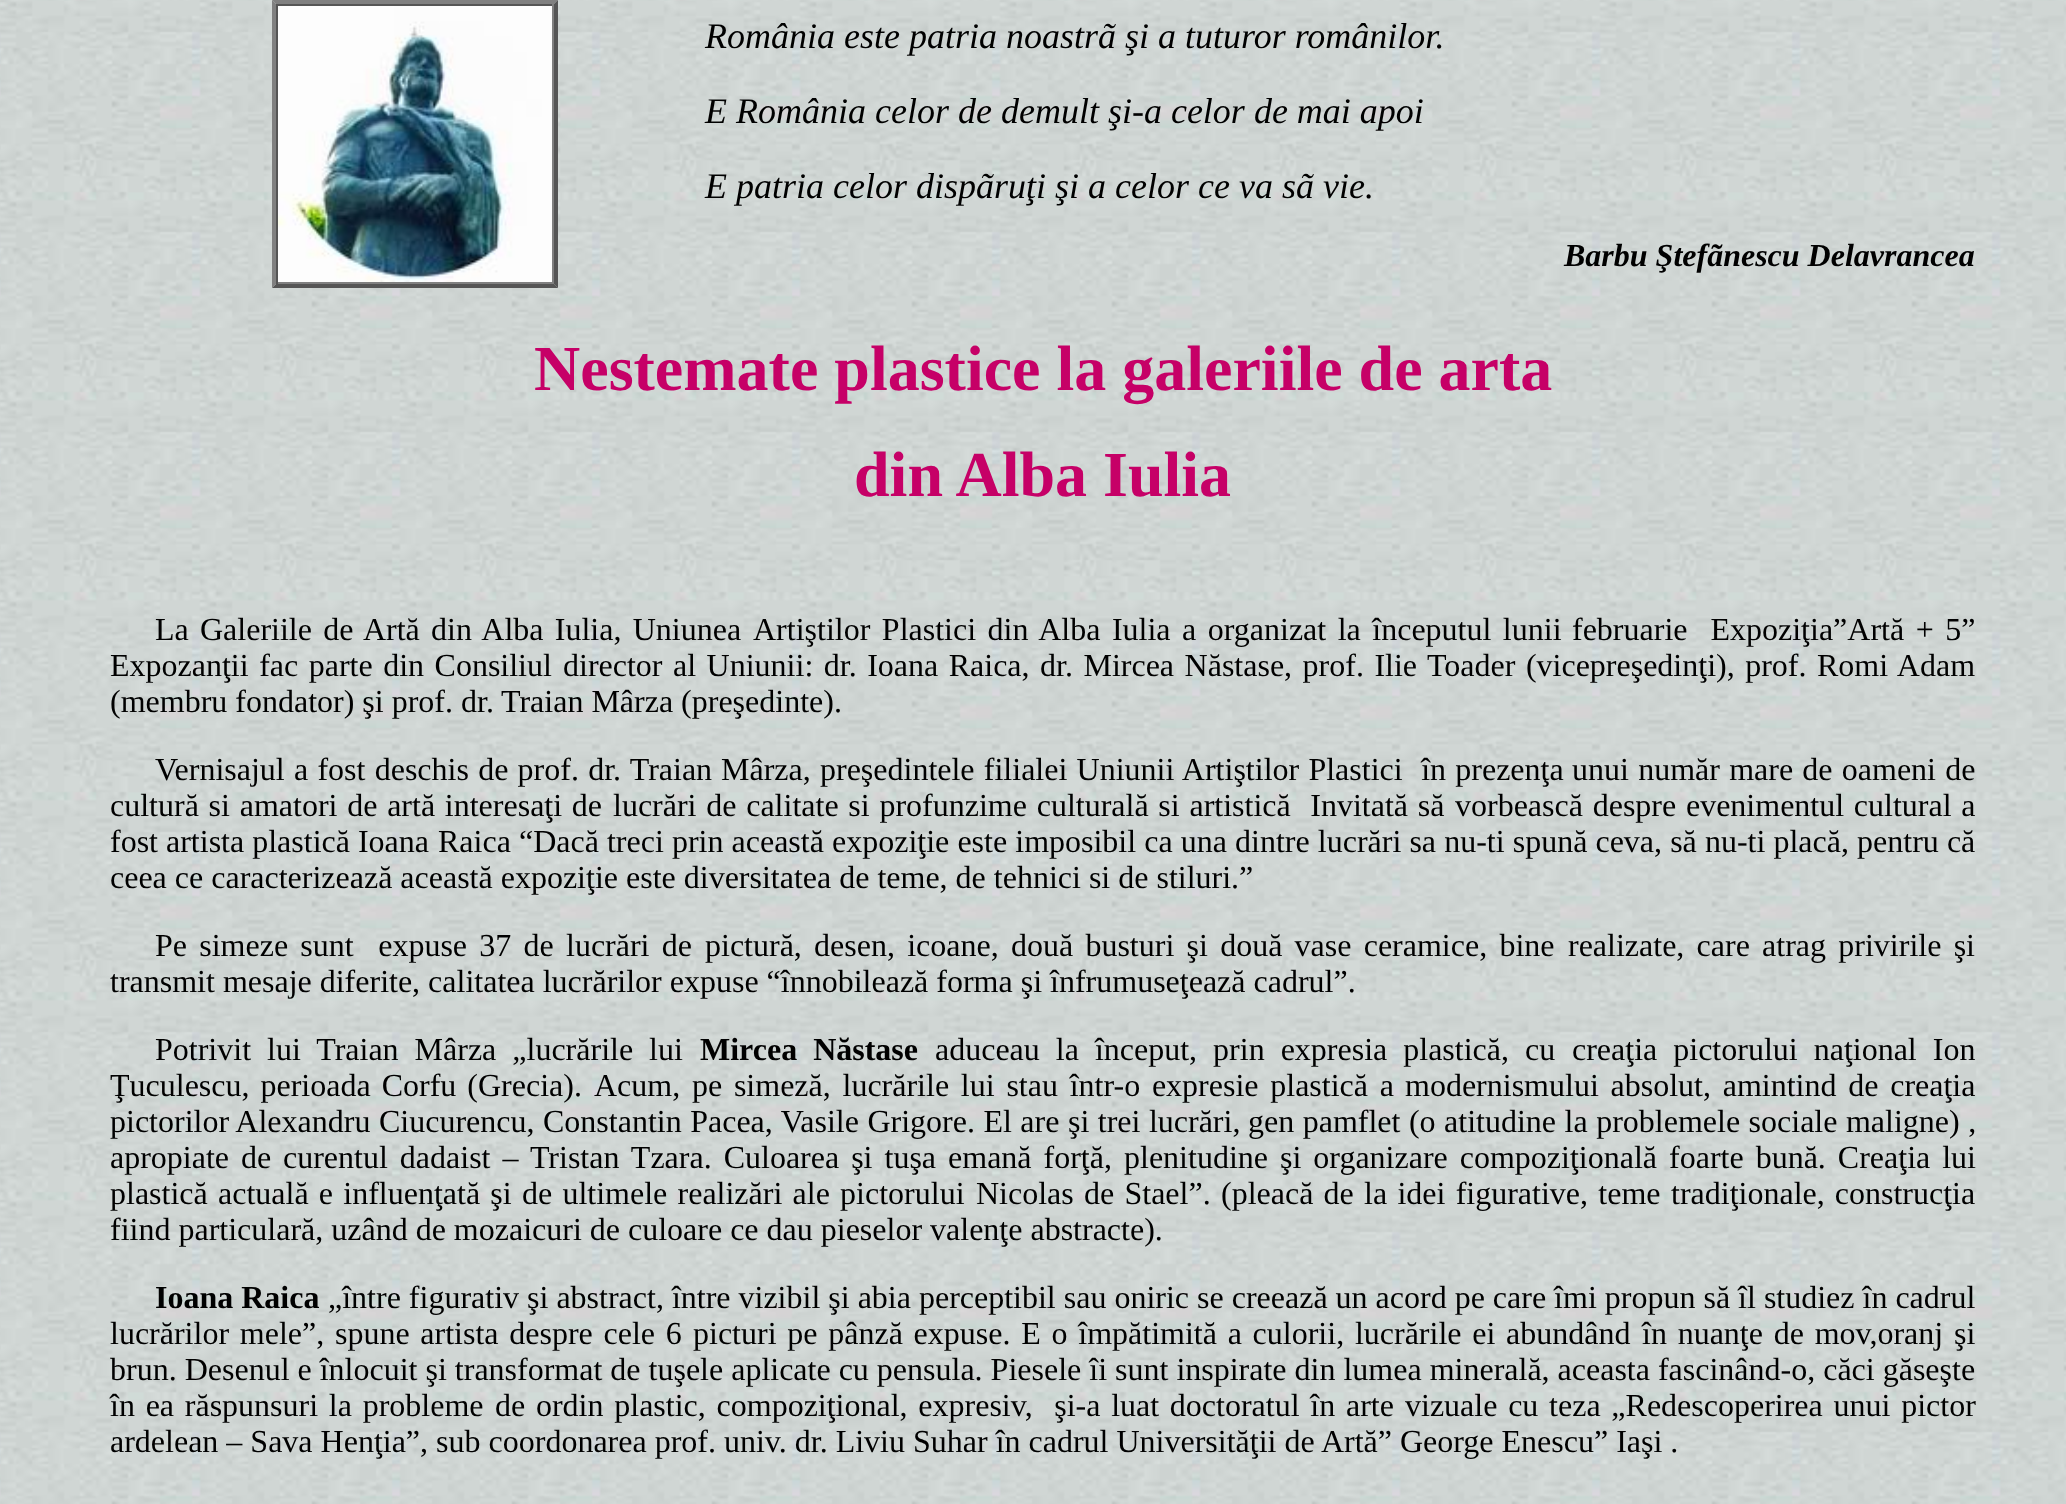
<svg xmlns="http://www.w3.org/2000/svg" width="2066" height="1504">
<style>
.a{font:italic 36px Liberation Serif;fill:#000}
.b{font:italic bold 32px Liberation Serif;fill:#000}
.c{font:bold 64px Liberation Serif;fill:#c60067}
.d{font:32px Liberation Serif;fill:#000}
.e{font:bold 32px Liberation Serif;fill:#000}
</style>
<rect width="100%" height="100%" fill="#fff"/>
<image href="1.png" x="0" y="0" width="2066" height="1504"/>
<path fill="#808080" d="M272 0h286l-4 4h-278z"/>
<path fill="#555" d="M558 0v288l-4-4v-280z"/>
<path fill="#555" d="M558 288h-286l4-4h278z"/>
<path fill="#808080" d="M272 288v-288l4 4v280z"/>
<path fill="#555" d="M276 4h278v2H276z"/>
<path fill="#808080" d="M552 4h2v280H552z"/>
<path fill="#808080" d="M276 282h278v2H276z"/>
<path fill="#555" d="M276 4h2v280H276z"/>
<image href="2.png" x="278" y="6" width="274" height="276"/>
<text class="a" x="705" y="48">România este patria noastrã şi a tuturor românilor.</text>
<text class="a" x="705" y="123">E România celor de demult şi-a celor de mai apoi</text>
<text class="a" x="705" y="198">E patria celor dispãruţi şi a celor ce va sã vie.</text>
<text class="b" x="1564" y="266">Barbu Ştefãnescu Delavrancea</text>
<text class="c" x="534" y="390">Nestemate plastice la galeriile de arta</text>
<text class="c" x="854" y="496">din Alba Iulia</text>
<text class="d" x="155" y="640" word-spacing="3.25">La Galeriile de Artă din Alba Iulia, Uniunea</text>
<text class="d" x="753" y="640" word-spacing="3.5">Artiştilor Plastici din Alba Iulia a organizat la începutul lunii</text>
<text class="d" xml:space="preserve" x="1572" y="640" word-spacing="3.5">februarie  Expoziţia”Artă + 5”</text>
<text class="d" x="110" y="676" word-spacing="2.5">Expozanţii fac parte din Consiliul</text>
<text class="d" x="563" y="676" word-spacing="2.5">director al Uniunii: dr. Ioana Raica, dr. Mircea Năstase, prof. Ilie</text>
<text class="d" x="1427" y="676" word-spacing="2.5">Toader (vicepreşedinţi), prof. Romi Adam</text>
<text class="d" x="110" y="712">(membru fondator) şi prof. dr.</text>
<text class="d" x="501" y="712">Traian Mârza (preşedinte).</text>
<text class="d" x="155" y="780" word-spacing="1.25">Vernisajul a fost deschis de prof. dr. Traian</text>
<text class="d" xml:space="preserve" x="721" y="780" word-spacing="1.25">Mârza, preşedintele filialei Uniunii Artiştilor Plastici  în prezenţa</text>
<text class="d" x="1572" y="780" word-spacing="1.25">unui număr mare de oameni de</text>
<text class="d" x="110" y="816" word-spacing="1.75">cultură si amatori de artă interesaţi de</text>
<text class="d" xml:space="preserve" x="613" y="816" word-spacing="1.75">lucrări de calitate si profunzime culturală si artistică  Invitată să</text>
<text class="d" x="1455" y="816" word-spacing="1.75">vorbească despre evenimentul cultural a</text>
<text class="d" x="110" y="852">fost artista plastică Ioana</text>
<text class="d" x="438" y="852" word-spacing="0.1">Raica “Dacă treci prin această expoziţie este imposibil ca una dintre lucrări sa nu-ti spună ceva, să nu-ti placă, pentru că</text>
<text class="d" x="110" y="888">ceea ce caracterizează această expoziţie este diversitatea de teme, de tehnici si de stiluri.”</text>
<text class="d" xml:space="preserve" x="155" y="956" word-spacing="4.25">Pe simeze sunt  expuse 37 de lucrări de</text>
<text class="d" x="705" y="956" word-spacing="4.25">pictură, desen, icoane, două busturi şi două vase ceramice, bine</text>
<text class="d" x="1568" y="956" word-spacing="4.25">realizate, care atrag privirile şi</text>
<text class="d" x="110" y="992">transmit mesaje diferite, calitatea lucrărilor expuse “înnobilează forma şi înfrumuseţează cadrul”.</text>
<text class="d" x="155" y="1060" word-spacing="8">Potrivit lui Traian Mârza „lucrările lui</text>
<text class="e" x="700" y="1060" word-spacing="8">Mircea Năstase</text>
<text class="d" x="935" y="1060" word-spacing="8">aduceau la început, prin expresia plastică, cu</text>
<text class="d" x="1572" y="1060" word-spacing="8">creaţia pictorului naţional Ion</text>
<text class="d" x="110" y="1096" word-spacing="3">Ţuculescu, perioada Corfu (Grecia).</text>
<text class="d" x="594" y="1096" word-spacing="3.75">Acum, pe simeză, lucrările lui stau într-o expresie plastică a</text>
<text class="d" x="1405" y="1096" word-spacing="3.75">modernismului absolut, amintind de creaţia</text>
<text class="d" x="110" y="1132">pictorilor Alexandru</text>
<text class="d" x="379" y="1132" word-spacing="0.5">Ciucurencu, Constantin Pacea, Vasile Grigore. El are şi trei lucrări,</text>
<text class="d" x="1248" y="1132" word-spacing="0.5">gen pamflet (o atitudine la problemele sociale maligne) ,</text>
<text class="d" x="110" y="1168" word-spacing="4">apropiate de</text>
<text class="d" x="283" y="1168" word-spacing="4">curentul dadaist – Tristan Tzara. Culoarea şi tuşa emană forţă,</text>
<text class="d" x="1124" y="1168" word-spacing="4">plenitudine şi organizare compoziţională foarte bună. Creaţia lui</text>
<text class="d" x="110" y="1204" word-spacing="2.25">plastică actuală e influenţată şi de ultimele realizări ale pictorului</text>
<text class="d" x="976" y="1204" word-spacing="2.25">Nicolas de Stael”.</text>
<text class="d" x="1221" y="1204" word-spacing="2.25">(pleacă de la idei figurative, teme</text>
<text class="d" x="1671" y="1204" word-spacing="2">tradiţionale, construcţia</text>
<text class="d" x="110" y="1240">fiind particulară, uzând de mozaicuri de culoare ce dau pieselor valenţe abstracte).</text>
<text class="e" x="155" y="1308">Ioana Raica</text>
<text class="d" x="328" y="1308">„între figurativ şi abstract, între vizibil şi abia perceptibil sau oniric se creează un acord pe care îmi propun să îl studiez în cadrul</text>
<text class="d" x="110" y="1344" word-spacing="2.75">lucrărilor mele”, spune artista despre cele 6</text>
<text class="d" x="693" y="1344" word-spacing="2.75">picturi pe pânză expuse. E o împătimită a culorii, lucrările ei abundând</text>
<text class="d" x="1642" y="1344" word-spacing="2.75">în nuanţe de mov,oranj şi</text>
<text class="d" x="110" y="1380">brun. Desenul e înlocuit şi transformat de tuşele aplicate cu pensula. Piesele îi sunt inspirate din lumea minerală, aceasta fascinând-o, căci găseşte</text>
<text class="d" x="110" y="1416" word-spacing="2.75">în ea răspunsuri la probleme</text>
<text class="d" xml:space="preserve" x="495" y="1416" word-spacing="2.75">de ordin plastic, compoziţional, expresiv,  şi-a luat doctoratul în arte</text>
<text class="d" x="1405" y="1416" word-spacing="2.75">vizuale cu teza „Redescoperirea unui pictor</text>
<text class="d" x="110" y="1452">ardelean – Sava Henţia”, sub coordonarea prof. univ. dr. Liviu Suhar în cadrul Universităţii de Artă” George Enescu” Iaşi .</text>
</svg>
